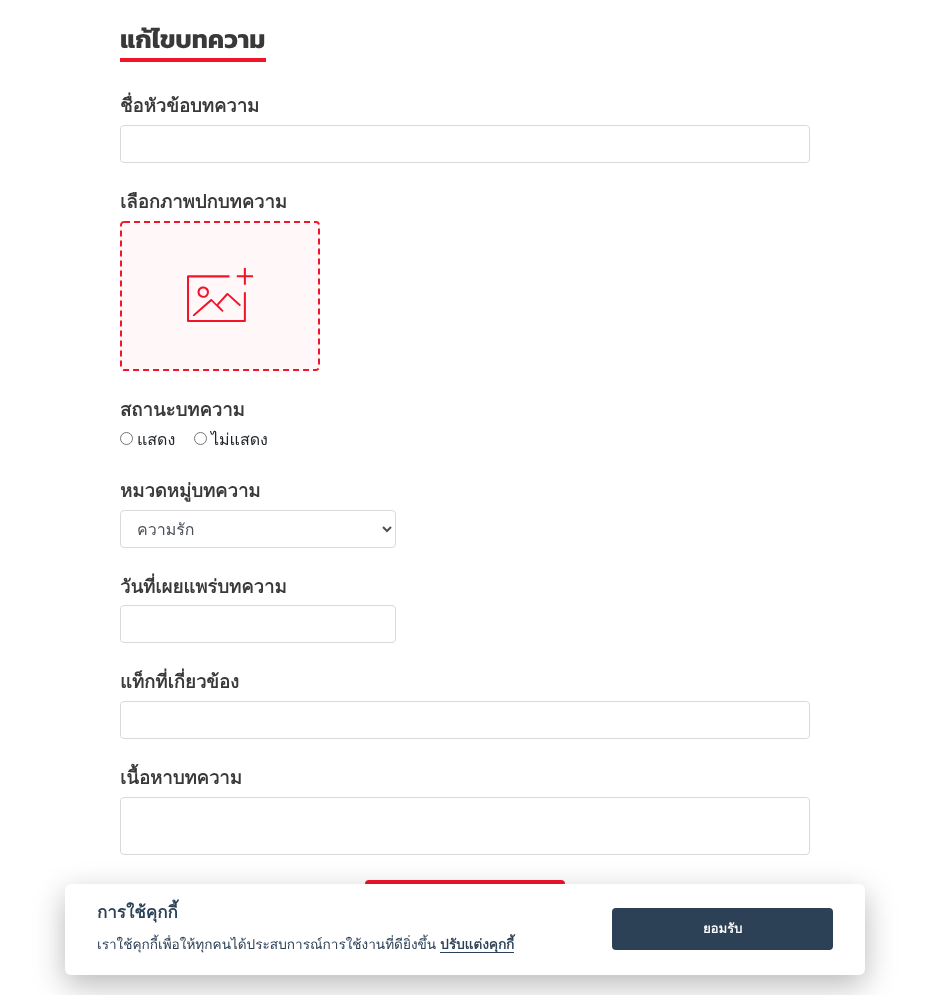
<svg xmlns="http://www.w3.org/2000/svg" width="930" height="995">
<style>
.a{font:bold 25.5px Kanit;fill:#393939}
.b{font:bold 18.5px Loma;fill:#393939}
.c{font:16px Loma;fill:#212529}
.d{font:16px Loma;fill:#495057}
.e{font:bold 17px Loma;fill:#2d4156}
.f{font:13.6px Loma;fill:#2d4156}
.g{font:bold 13.6px Loma;fill:#2d4156}
.h{font:bold 13px Loma;fill:#fff}
</style>
<rect width="100%" height="100%" fill="#fff"/>
<path fill="#f21529" d="M120 58h146v4H120z"/>
<rect fill="none" stroke="#d9d9d9" x="120.5" y="125.5" width="689" height="37" rx="3.5"/>
<rect fill="#fff7f8" x="120" y="221" width="200" height="150" rx="4"/>
<path fill="none" stroke="#f21529" stroke-width="2" stroke-dasharray="6 4" d="M124 222h192c1.5 0 3 1.5 3 3v142c0 1.5-1.5 3-3 3h-192c-1.5 0-3-1.5-3-3v-142c0-1.5 1.5-3 3-3z"/>
<image href="1.png" x="187" y="268" width="66" height="54"/>
<circle fill="none" stroke="#767676" cx="126.5" cy="438.5" r="6"/>
<circle fill="none" stroke="#767676" cx="200.5" cy="438.5" r="6"/>
<rect fill="none" stroke="#d9d9d9" x="120.5" y="510.5" width="275" height="37" rx="3.5"/>
<path fill="none" stroke="#495057" stroke-width="2" d="M383 527l4 4l4-4"/>
<rect fill="none" stroke="#d9d9d9" x="120.5" y="605.5" width="275" height="37" rx="3.5"/>
<rect fill="none" stroke="#d9d9d9" x="120.5" y="701.5" width="689" height="37" rx="3.5"/>
<rect fill="none" stroke="#d9d9d9" x="120.5" y="797.5" width="689" height="57" rx="3.5"/>
<rect fill="#f21529" x="365" y="880" width="200" height="55" rx="4"/>
<rect fill="#02020347" filter="blur(15px)" x="65" y="894" width="800" height="91" rx="6"/>
<rect fill="#fff" x="65" y="884" width="800" height="91" rx="6"/>
<path fill="#2d4156" d="M440 952h74v1H440z"/>
<rect fill="#2d4156" x="612" y="908" width="221" height="42" rx="4"/>
<text class="a" x="120" y="48">แก้ไขบทความ</text>
<text class="b" x="120" y="112">ชื่อหัวข้อบทความ</text>
<text class="b" x="120" y="208">เลือกภาพปกบทความ</text>
<text class="b" x="120" y="416">สถานะบทความ</text>
<text class="c" x="137" y="445">แสดง</text>
<text class="c" x="211" y="445">ไม่แสดง</text>
<text class="b" x="120" y="497">หมวดหมู่บทความ</text>
<text class="d" x="137" y="535">ความรัก</text>
<text class="b" x="120" y="593">วันที่เผยแพร่บทความ</text>
<text class="b" x="120" y="688">แท็กที่เกี่ยวข้อง</text>
<text class="b" x="120" y="784">เนื้อหาบทความ</text>
<text class="e" x="97" y="918">การใช้คุกกี้</text>
<text class="f" x="97" y="949">เราใช้คุกกี้เพื่อให้ทุกคนได้ประสบการณ์การใช้งานที่ดียิ่งขึ้น</text>
<text class="g" x="440" y="949">ปรับแต่งคุกกี้</text>
<text class="h" x="703" y="933">ยอมรับ</text>
</svg>
